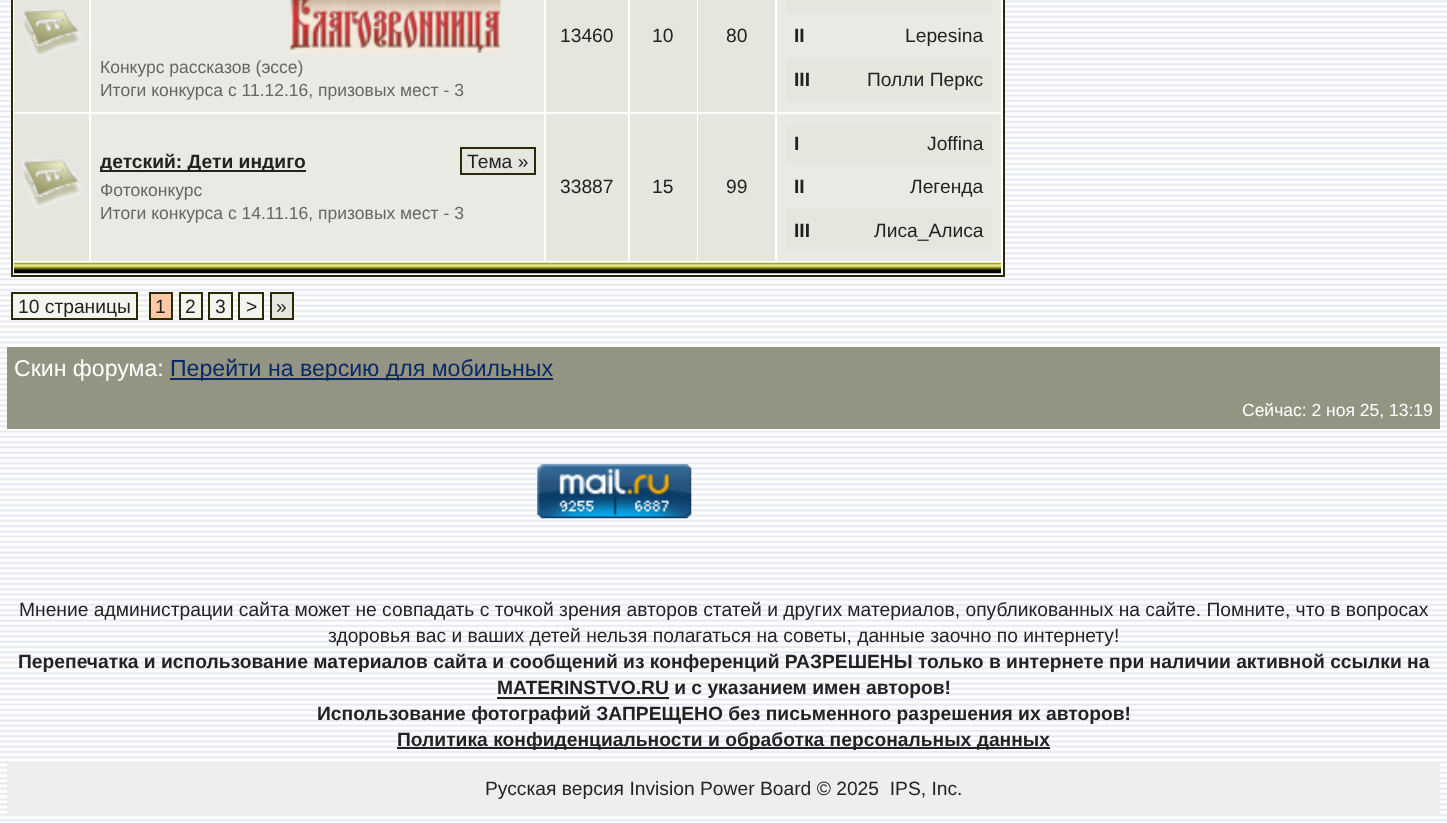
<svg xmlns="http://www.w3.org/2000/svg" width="1447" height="823">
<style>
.a{font:17.5px Liberation Sans;fill:#666}
.b{font:19.25px Liberation Sans;fill:#222}
.c{font:bold 19.25px Liberation Sans;fill:#222}
.d{font:23.1px Liberation Sans;fill:#fff}
.e{font:23.1px Liberation Sans;fill:#072a66}
.f{font:17.5px Liberation Sans;fill:#fff}
</style>
<rect width="100%" height="100%" fill="#fff"/>
<image href="1.png" x="0" y="0" width="1447" height="822"/>
<path fill="#fff" stroke="#2a2a07" stroke-width="2" d="M12 -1h992v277H12z"/>
<path fill="#e6e6df" d="M14 0h75v112H14z"/>
<image href="2.png" x="22" y="9" width="59" height="49"/>
<path fill="#eaeae4" d="M91 0h453v112H91z"/>
<image href="3.png" x="290" y="0" width="211" height="53"/>
<path fill="#e6e6df" d="M546 0h82v112H546z"/>
<path fill="#e6e6df" d="M630 0h67v112H630z"/>
<path fill="#e6e6df" d="M698 0h77v112H698z"/>
<path fill="#eaeae4" d="M777 0h224v112H777z"/>
<path fill="#e6e6df" d="M786 0h206v14H786z"/>
<path fill="#e6e6df" d="M786 58h206v44H786z"/>
<path fill="#e6e6df" d="M14 114h75v147H14z"/>
<image href="4.png" x="22" y="159" width="59" height="50"/>
<path fill="#eaeae4" d="M91 114h453v147H91z"/>
<path fill="#222" d="M100 170h206v2H100z"/>
<path fill="#e6e6df" stroke="#2a2a07" stroke-width="2" d="M461 148h74v26H461z"/>
<path fill="#e6e6df" d="M546 114h82v147H546z"/>
<path fill="#e6e6df" d="M630 114h67v147H630z"/>
<path fill="#e6e6df" d="M698 114h77v147H698z"/>
<path fill="#eaeae4" d="M777 114h224v147H777z"/>
<path fill="#e6e6df" d="M786 123h206v42H786z"/>
<path fill="#e6e6df" d="M786 208h206v44H786z"/>
<image href="5.png" x="14" y="262" width="987" height="12"/>
<path fill="#f5f5f0" stroke="#2a2a07" stroke-width="2" d="M12 293h125v26H12z"/>
<path fill="#ffc9a5" stroke="#2a2a07" stroke-width="2" d="M150 293h22v26H150z"/>
<path fill="#f5f5f0" stroke="#2a2a07" stroke-width="2" d="M180 293h22v26H180z"/>
<path fill="#f5f5f0" stroke="#2a2a07" stroke-width="2" d="M209 293h23v26H209z"/>
<path fill="#f5f5f0" stroke="#2a2a07" stroke-width="2" d="M239 293h24v26H239z"/>
<path fill="#e6e6df" stroke="#2a2a07" stroke-width="2" d="M271 293h22v26H271z"/>
<path fill="#949483" d="M7 347h1433v82H7z"/>
<path fill="#072a66" d="M170 378h383v2H170z"/>
<image href="6.png" x="537" y="464" width="155" height="55"/>
<path fill="#222" d="M497 697h172v2H497z"/>
<path fill="#222" d="M397 747h653v2H397z"/>
<path fill="#eee" d="M7 761h1433v55H7z"/>
<text class="a" x="100" y="73">Конкурс рассказов (эссе)</text>
<text class="a" x="100" y="96">Итоги конкурса с 11.12.16, призовых мест - 3</text>
<text class="b" x="560" y="42">13460</text>
<text class="b" x="652" y="42">10</text>
<text class="b" x="726" y="42">80</text>
<text class="c" x="794" y="42">II</text>
<text class="b" x="905" y="42">Lepesina</text>
<text class="c" x="794" y="86">III</text>
<text class="b" x="867" y="86">Полли Перкс</text>
<text class="c" x="100" y="168">детский: Дети индиго</text>
<text class="b" x="467" y="168">Тема »</text>
<text class="a" x="100" y="196">Фотоконкурс</text>
<text class="a" x="100" y="219">Итоги конкурса с 14.11.16, призовых мест - 3</text>
<text class="b" x="560" y="193">33887</text>
<text class="b" x="652" y="193">15</text>
<text class="b" x="726" y="193">99</text>
<text class="c" x="794" y="150">I</text>
<text class="b" x="927" y="150">Joffina</text>
<text class="c" x="794" y="193">II</text>
<text class="b" x="910" y="193">Легенда</text>
<text class="c" x="794" y="237">III</text>
<text class="b" x="874" y="237">Лиса_Алиса</text>
<text class="b" x="18" y="313">10 страницы</text>
<text class="b" x="155" y="313">1</text>
<text class="b" x="185" y="313">2</text>
<text class="b" x="215" y="313">3</text>
<text class="b" x="246" y="313">&gt;</text>
<text class="b" x="276" y="313">»</text>
<text class="d" x="14" y="376">Скин форума:</text>
<text class="e" x="170" y="376">Перейти на версию для мобильных</text>
<text class="f" x="1242" y="416">Сейчас: 2 ноя 25, 13:19</text>
<text class="b" x="19" y="616">Мнение администрации сайта может не совпадать с точкой зрения авторов статей и других материалов, опубликованных на сайте. Помните, что в вопросах</text>
<text class="b" x="328" y="642">здоровья вас и ваших детей нельзя полагаться на советы, данные заочно по интернету!</text>
<text class="c" x="18" y="668">Перепечатка и использование материалов сайта и сообщений из конференций РАЗРЕШЕНЫ только в интернете при наличии активной ссылки на</text>
<text class="c" x="497" y="694">MATERINSTVO.RU и с указанием имен авторов!</text>
<text class="c" x="317" y="720">Использование фотографий ЗАПРЕЩЕНО без письменного разрешения их авторов!</text>
<text class="c" x="397" y="746">Политика конфиденциальности и обработка персональных данных</text>
<text class="b" xml:space="preserve" x="485" y="795">Русская версия Invision Power Board © 2025  IPS, Inc.</text>
</svg>
